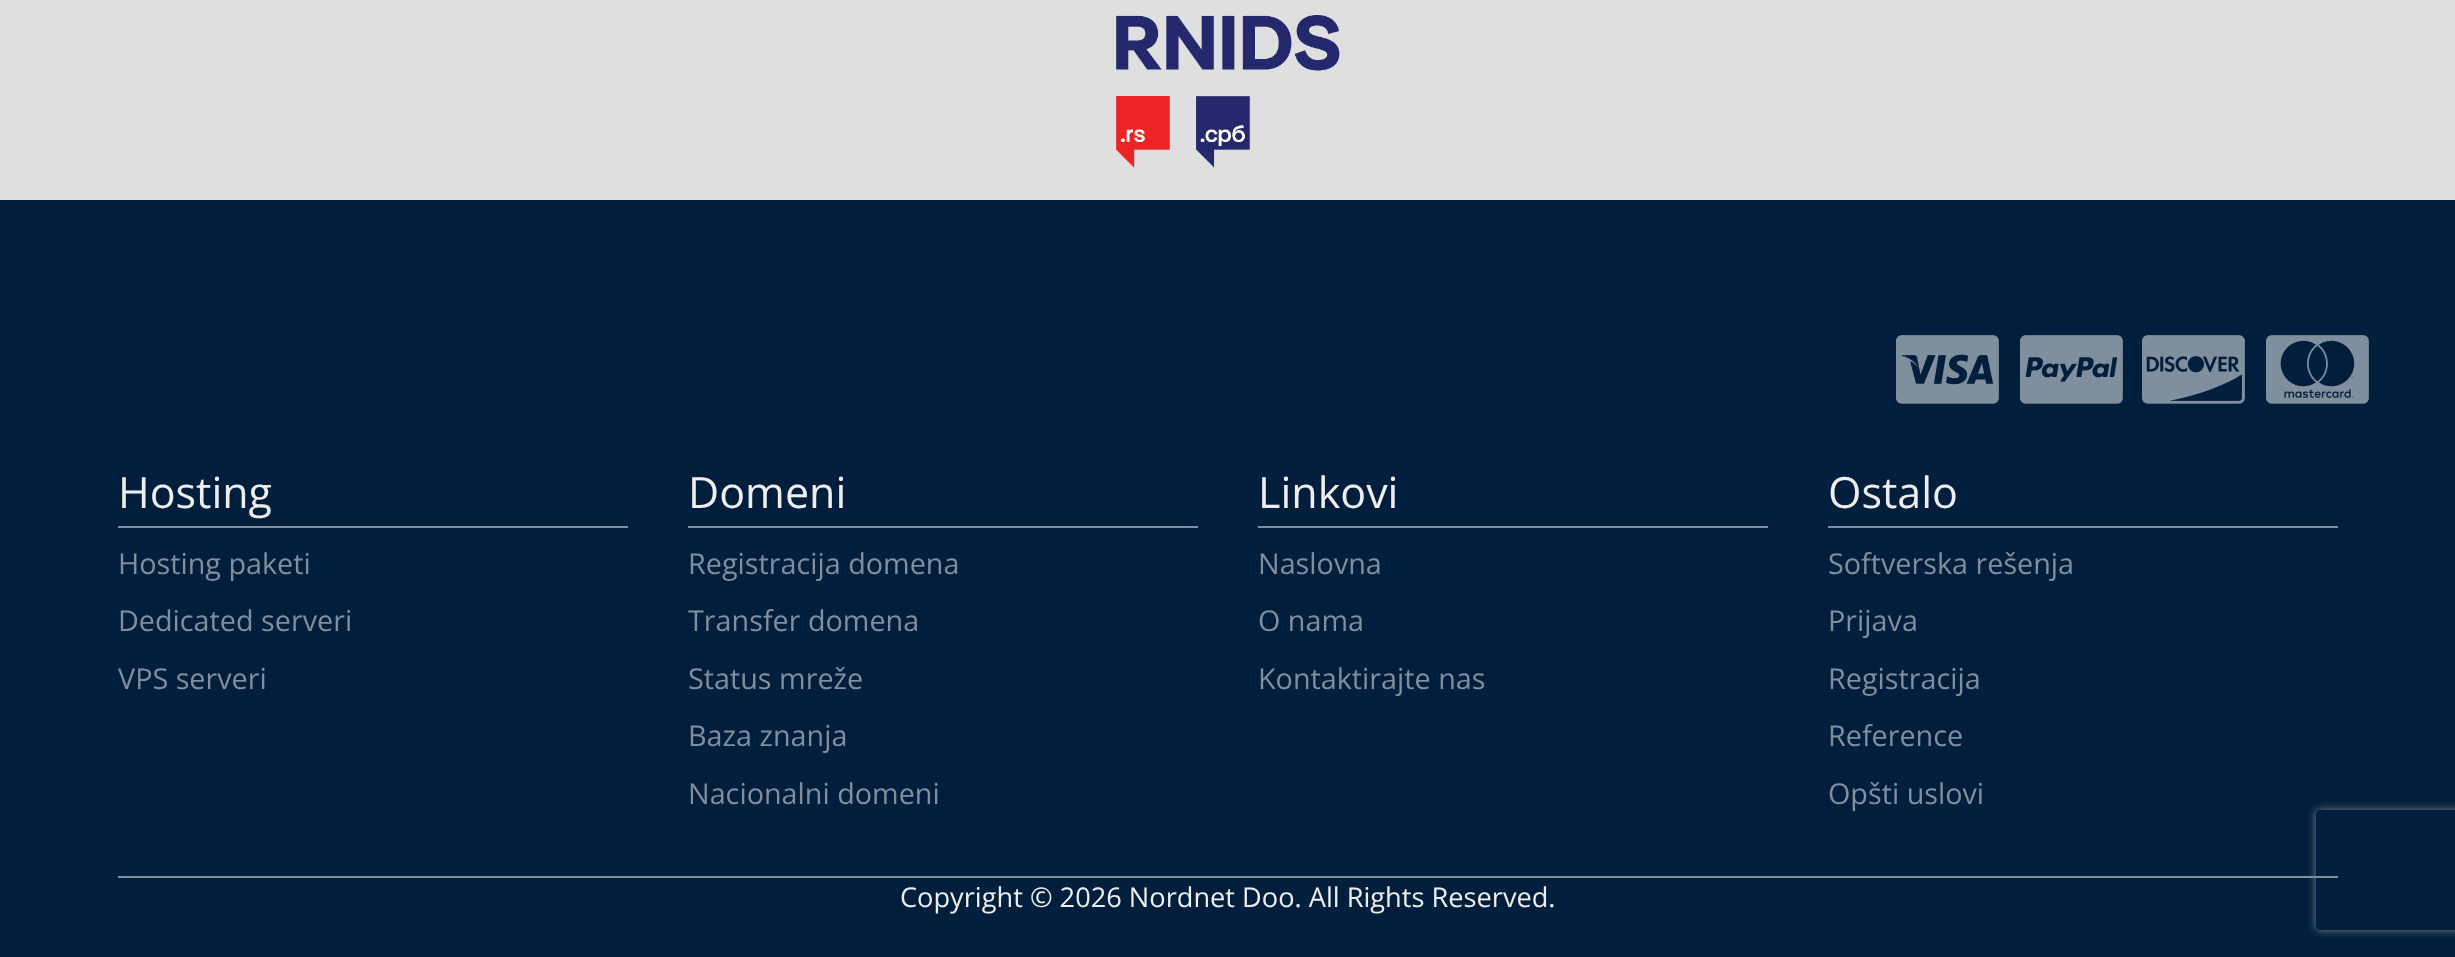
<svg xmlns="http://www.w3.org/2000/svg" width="2455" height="957">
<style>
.a{font:43px Open Sans;fill:#eee}
.b{font:28.75px Open Sans;fill:#808f9e}
.c{font:27.2px Open Sans;fill:#eee}
</style>
<defs>
<clipPath id="clip1"><path d="M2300 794h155v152h-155zm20 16h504c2 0 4 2 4 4v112c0 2-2 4-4 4h-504c-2 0-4-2-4-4v-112c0-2 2-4 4-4z" clip-rule="evenodd"/></clipPath>
</defs>
<rect width="100%" height="100%" fill="#dfdfdf"/>
<image href="1.png" x="1116" y="15" width="224" height="153"/>
<path fill="#011e3c" d="M0 200h2455v757H0z"/>
<image href="2.png" x="1896" y="335" width="103" height="69"/>
<image href="3.png" x="2020" y="335" width="103" height="69"/>
<image href="4.png" x="2142" y="335" width="103" height="69"/>
<image href="5.png" x="2266" y="335" width="103" height="69"/>
<path fill="#808f9e" d="M118 526h510v2H118z"/>
<path fill="#808f9e" d="M688 526h510v2H688z"/>
<path fill="#808f9e" d="M1258 526h510v2H1258z"/>
<path fill="#808f9e" d="M1828 526h510v2H1828z"/>
<path fill="#808f9e" d="M118 876h2220v2H118z"/>
<g clip-path="url(#clip1)">
<rect fill="#808080" filter="blur(5px)" x="2316" y="810" width="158" height="120" rx="4"/>
</g>
<text class="a" x="118" y="508">Hosting</text>
<text class="b" x="118" y="574">Hosting paketi</text>
<text class="b" x="118" y="631">Dedicated serveri</text>
<text class="b" x="118" y="689">VPS serveri</text>
<text class="a" x="688" y="508">Domeni</text>
<text class="b" x="688" y="574">Registracija domena</text>
<text class="b" x="688" y="631">Transfer domena</text>
<text class="b" x="688" y="689">Status mreže</text>
<text class="b" x="688" y="746">Baza znanja</text>
<text class="b" x="688" y="804">Nacionalni domeni</text>
<text class="a" x="1258" y="508">Linkovi</text>
<text class="b" x="1258" y="574">Naslovna</text>
<text class="b" x="1258" y="631">O nama</text>
<text class="b" x="1258" y="689">Kontaktirajte nas</text>
<text class="a" x="1828" y="508">Ostalo</text>
<text class="b" x="1828" y="574">Softverska rešenja</text>
<text class="b" x="1828" y="631">Prijava</text>
<text class="b" x="1828" y="689">Registracija</text>
<text class="b" x="1828" y="746">Reference</text>
<text class="b" x="1828" y="804">Opšti uslovi</text>
<text class="c" x="900" y="907">Copyright © 2026 Nordnet Doo. All Rights Reserved.</text>
</svg>
